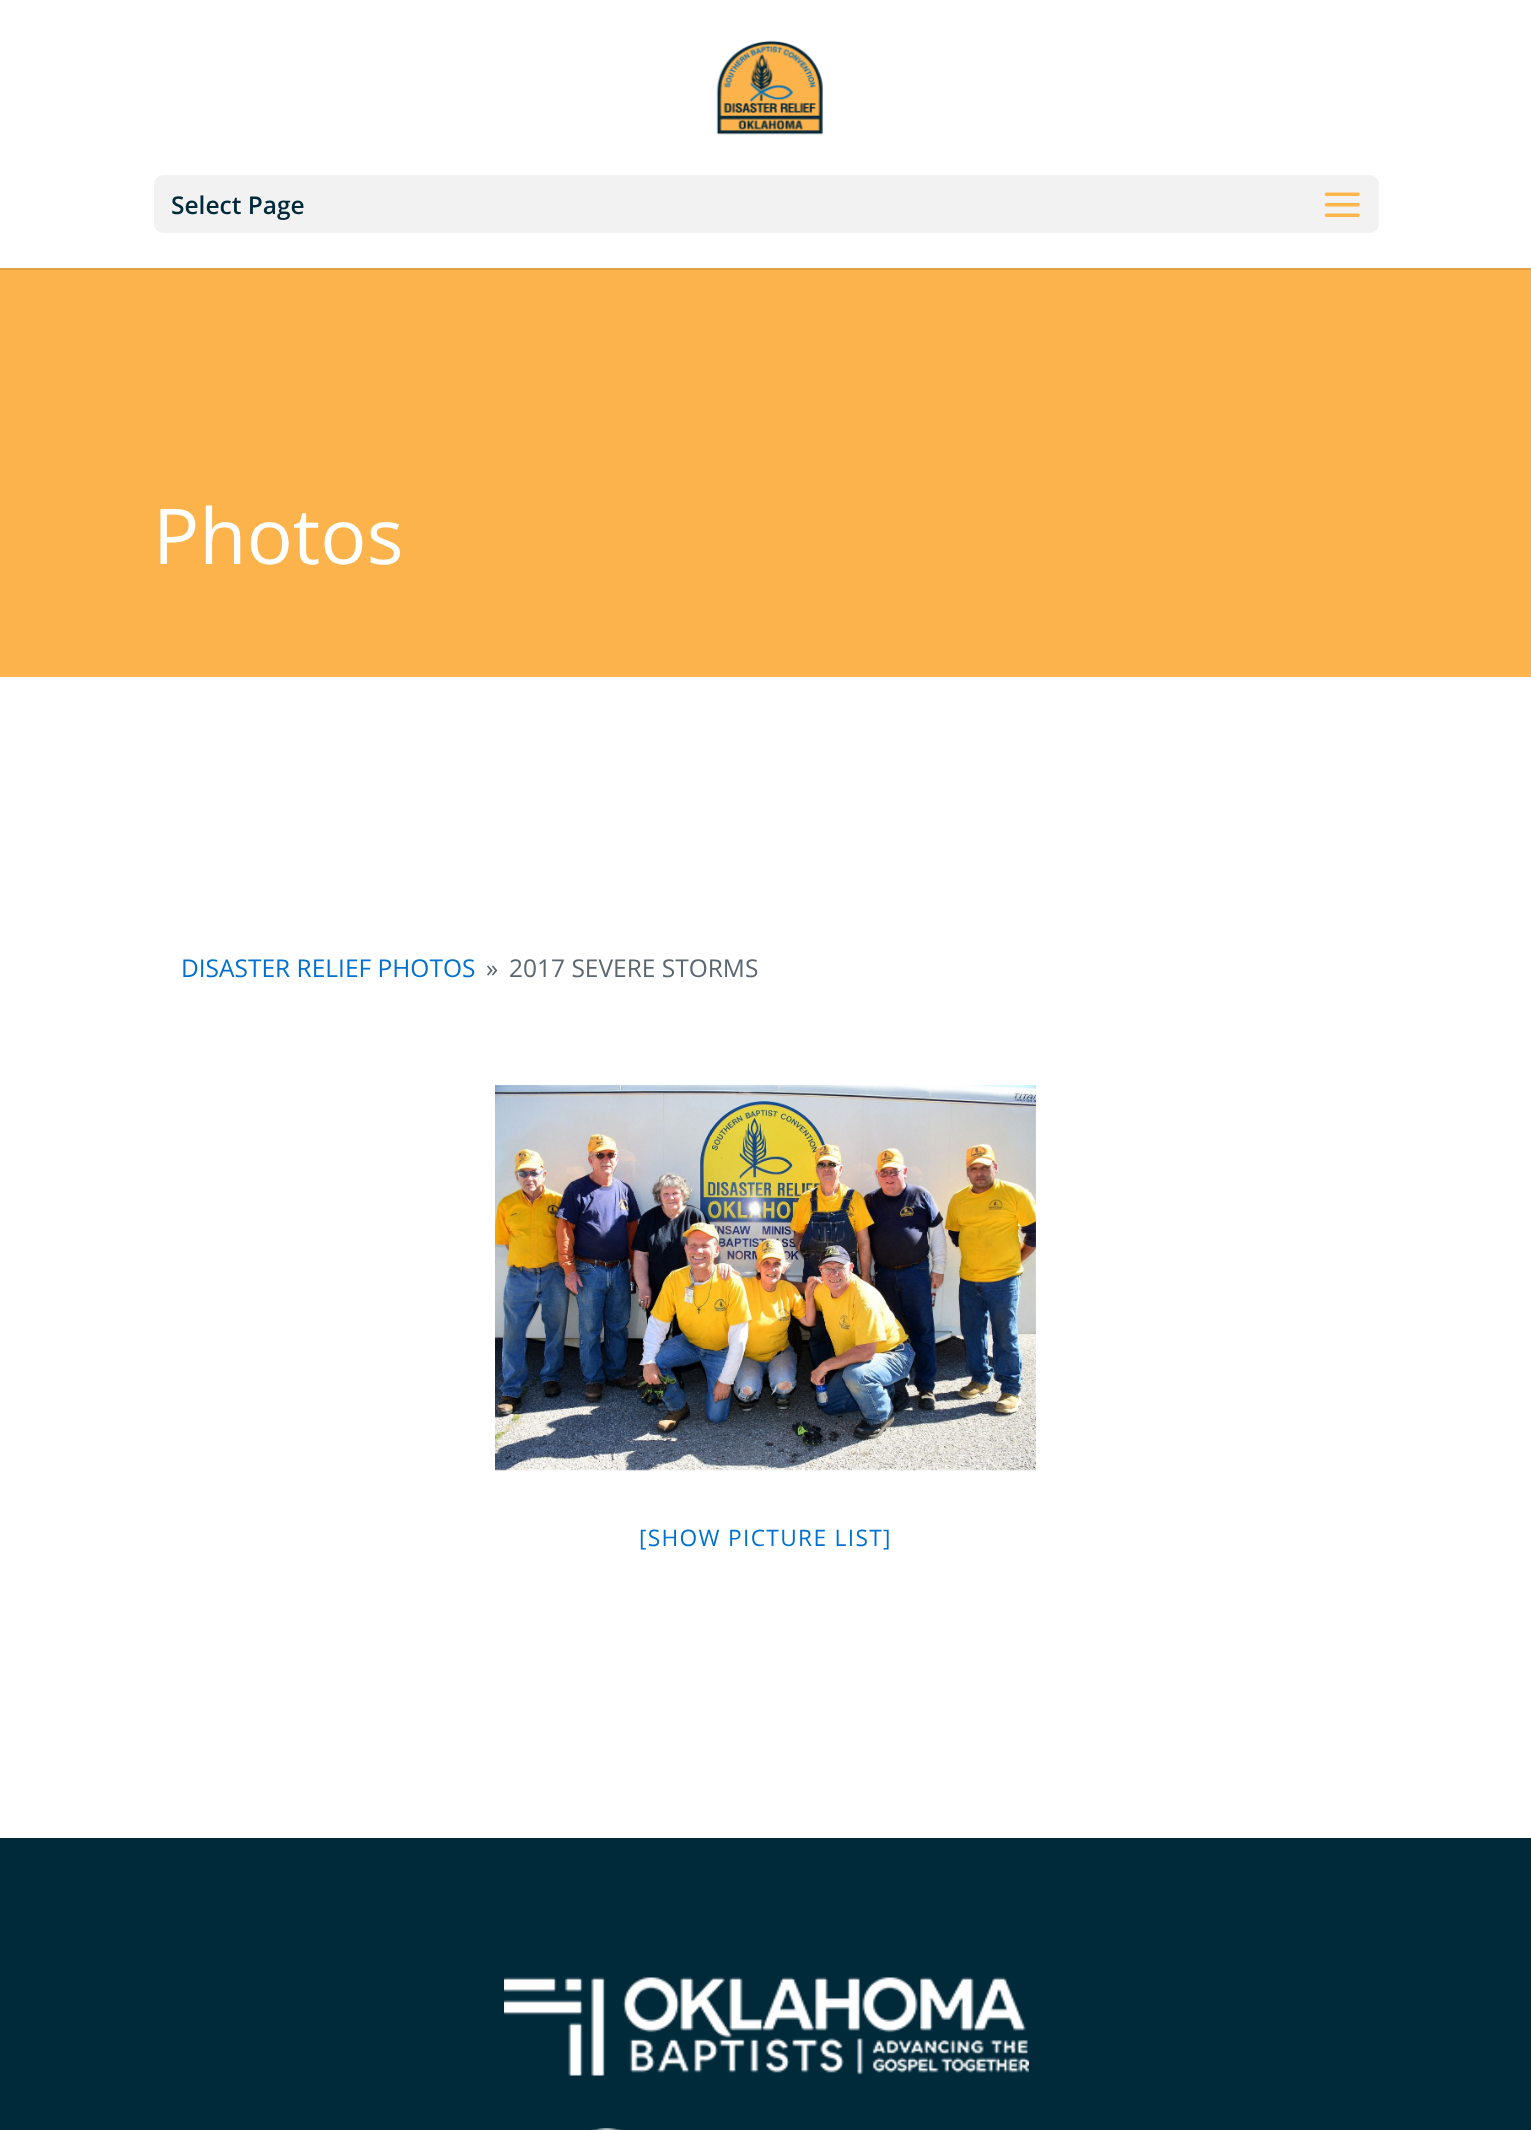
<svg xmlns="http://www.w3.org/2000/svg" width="1531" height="2130">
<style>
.a{font:600 24.5px Open Sans;fill:#002a3a}
.b{font:77px Open Sans;fill:#fff}
.c{font:24.5px Open Sans;fill:#0071ce}
.d{font:24.5px Open Sans;fill:#5b6670}
.e{font:22.75px Open Sans;letter-spacing:1.3px;fill:#0071ce}
</style>
<rect width="100%" height="100%" fill="#fcb34c"/>
<path fill="#e3a144" d="M0 268h1531v2H0z"/>
<path fill="#fff" d="M0 0h1531v268H0z"/>
<image href="1.png" x="716" y="40" width="107" height="95"/>
<rect fill="#f2f2f2" x="154" y="175" width="1225" height="58" rx="9"/>
<image href="2.png" x="1324" y="192" width="36" height="25"/>
<path fill="#fff" d="M0 677h1531v1161H0z"/>
<image href="3.png" x="495" y="1085" width="541" height="386"/>
<path fill="#002a3a" d="M0 1838h1531v292H0z"/>
<image href="4.png" x="504" y="1977" width="525" height="99"/>
<image href="5.png" x="591" y="2128" width="32" height="2"/>
<text class="a" x="171" y="214">Select Page</text>
<text class="b" x="153" y="564">Photos</text>
<text class="c" x="181" y="977">DISASTER RELIEF PHOTOS</text>
<text class="d" x="486" y="977">»</text>
<text class="d" x="509" y="977">2017 SEVERE STORMS</text>
<text class="e" x="639" y="1546">[SHOW PICTURE LIST]</text>
</svg>
